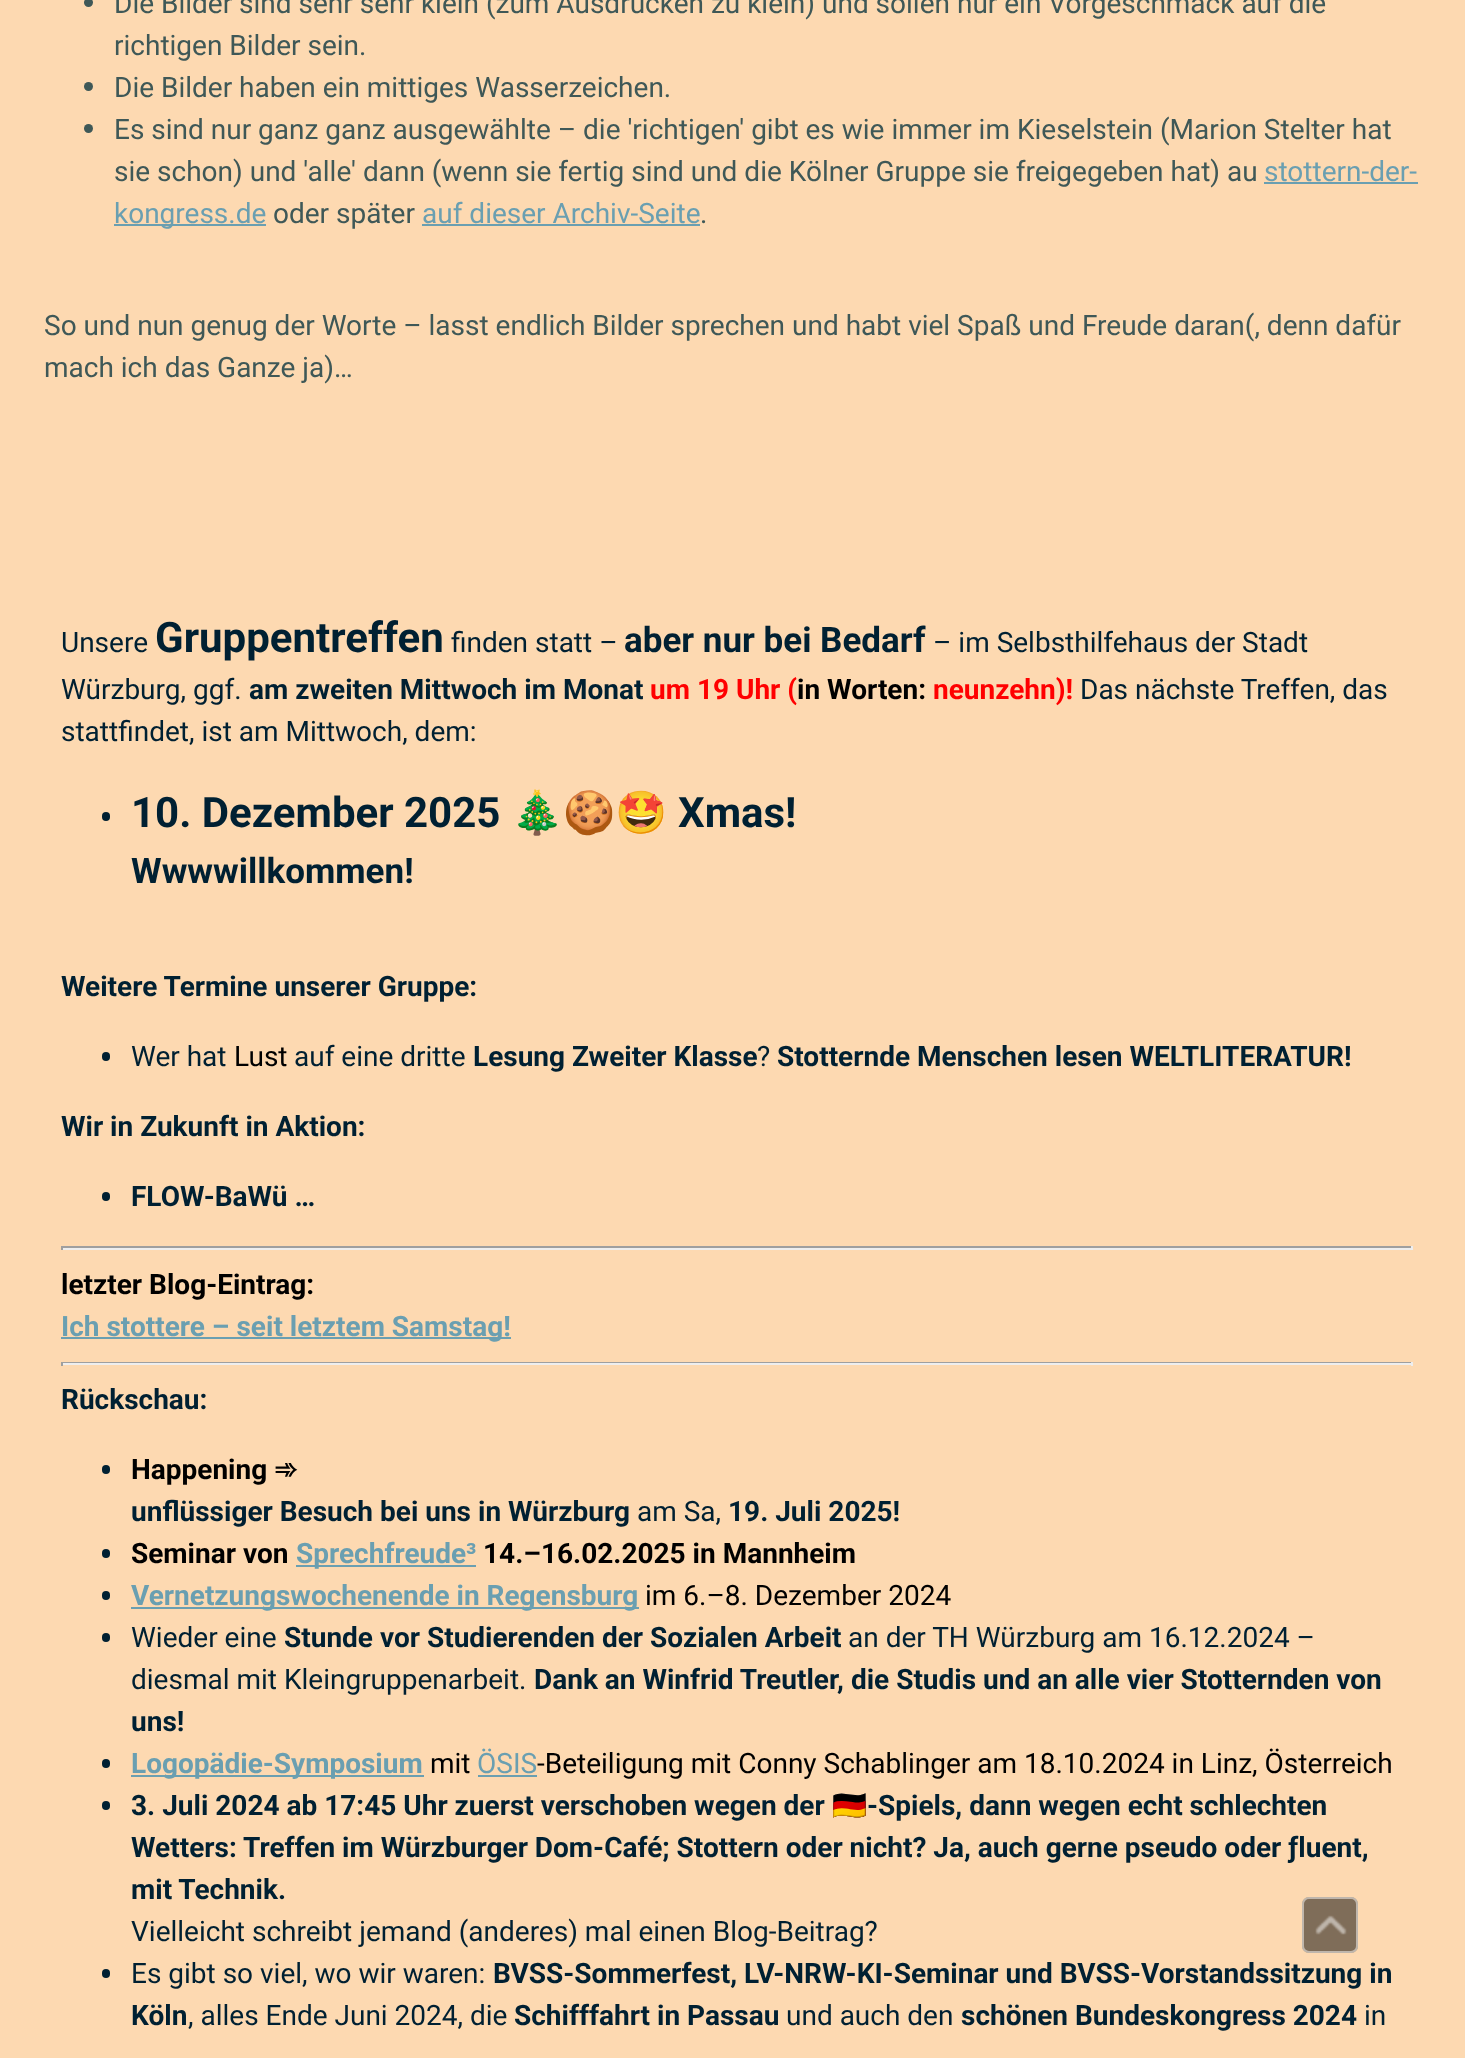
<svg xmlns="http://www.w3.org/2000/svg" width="1465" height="2058">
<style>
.a{font:28px Roboto;fill:#3f5857}
.b{font:28px Roboto;fill:#6a9fb1}
.c{font:28px Roboto;fill:#002032}
.d{font:bold 42px Roboto;fill:#002032}
.e{font:bold 35px Roboto;fill:#002032}
.f{font:bold 28px Roboto;fill:#002032}
.g{font:bold 28px Roboto;fill:#f00}
.h{font:bold 28px Roboto;fill:#000}
.i{font:bold 42px Noto Color Emoji;fill:#002032}
.j{font:28px Roboto;fill:#000}
.k{font:bold 28px Roboto;fill:#6a9fb1}
.l{font:bold 28px DejaVu Sans;fill:#000}
.m{font:bold 28px Noto Color Emoji;fill:#002032}
</style>
<rect width="100%" height="100%" fill="#fdd9b1"/>
<circle fill="#3f5857" cx="88.5" cy="2.5" r="4.5"/>
<circle fill="#3f5857" cx="88.5" cy="86.5" r="4.5"/>
<circle fill="#3f5857" cx="88.5" cy="128.5" r="4.5"/>
<path fill="#6a9fb1" d="M1264 182h154v2H1264z"/>
<path fill="#6a9fb1" d="M114 224h152v2H114z"/>
<path fill="#6a9fb1" d="M422 224h278v2H422z"/>
<rect fill="#002032" x="102" y="812" width="8" height="9" rx="4"/>
<rect fill="#002032" x="102" y="1052" width="8" height="9" rx="4"/>
<rect fill="#002032" x="102" y="1192" width="8" height="9" rx="4"/>
<path fill="#9f9f9f" d="M61 1246h1351v2H61z"/>
<path fill="#eee" d="M1411 1246h2v4H1411z"/>
<path fill="#eee" d="M61 1248h1351v2H61z"/>
<path fill="#9f9f9f" d="M61 1246h2v4H61z"/>
<path fill="#6a9fb1" d="M61 1337h450v2H61z"/>
<path fill="#9f9f9f" d="M61 1362h1351v1H61z"/>
<path fill="#eee" d="M1411 1362h2v4H1411z"/>
<path fill="#eee" d="M61 1363h1351v2H61z"/>
<path fill="#9f9f9f" d="M61 1362h2v4H61z"/>
<rect fill="#002032" x="102" y="1465" width="8" height="9" rx="4"/>
<rect fill="#002032" x="102" y="1549" width="8" height="9" rx="4"/>
<path fill="#6a9fb1" d="M296 1565h180v2H296z"/>
<rect fill="#002032" x="102" y="1591" width="8" height="9" rx="4"/>
<path fill="#6a9fb1" d="M131 1607h508v2H131z"/>
<rect fill="#002032" x="102" y="1633" width="8" height="9" rx="4"/>
<rect fill="#002032" x="102" y="1759" width="8" height="9" rx="4"/>
<path fill="#6a9fb1" d="M131 1775h293v2H131z"/>
<path fill="#6a9fb1" d="M478 1775h59v2H478z"/>
<rect fill="#002032" x="102" y="1801" width="8" height="9" rx="4"/>
<rect fill="#002032" x="102" y="1969" width="8" height="9" rx="4"/>
<rect fill="#7f6d59" x="1302" y="1897" width="56" height="56" rx="7"/>
<rect fill="none" stroke="#ffffff80" stroke-width="2" x="1303" y="1898" width="54" height="54" rx="6"/>
<image href="1.png" x="1315" y="1915" width="32" height="20"/>
<text class="a" x="114" y="13">Die Bilder sind sehr sehr klein (zum Ausdrucken zu klein) und sollen nur ein Vorgeschmack auf die</text>
<text class="a" x="114" y="55">richtigen Bilder sein.</text>
<text class="a" x="114" y="97">Die Bilder haben ein mittiges Wasserzeichen.</text>
<text class="a" x="114" y="139">Es sind nur ganz ganz ausgewählte – die 'richtigen' gibt es wie immer im Kieselstein (Marion Stelter hat</text>
<text class="a" x="114" y="181">sie schon) und 'alle' dann (wenn sie fertig sind und die Kölner Gruppe sie freigegeben hat) au</text>
<text class="b" x="1264" y="181">stottern-der-</text>
<text class="b" x="114" y="223">kongress.de</text>
<text class="a" x="273" y="223">oder später</text>
<text class="b" x="422" y="223">auf dieser Archiv-Seite</text>
<text class="a" x="700" y="223">.</text>
<text class="a" x="44" y="335">So und nun genug der Worte – lasst endlich Bilder sprechen und habt viel Spaß und Freude daran(, denn dafür</text>
<text class="a" x="44" y="377">mach ich das Ganze ja)…</text>
<text class="c" x="61" y="652">Unsere</text>
<text class="d" x="155" y="652">Gruppentreffen</text>
<text class="c" x="451" y="652">finden statt –</text>
<text class="e" x="624" y="652">aber nur bei Bedarf</text>
<text class="c" x="933" y="652">– im Selbsthilfehaus der Stadt</text>
<text class="c" x="61" y="699">Würzburg, ggf.</text>
<text class="f" x="249" y="699">am zweiten Mittwoch im Monat</text>
<text class="g" x="650" y="699">um 19 Uhr (</text>
<text class="h" x="797" y="699">in Worten:</text>
<text class="g" x="933" y="699">neunzehn)!</text>
<text class="c" x="1080" y="699">Das nächste Treffen, das</text>
<text class="c" x="61" y="741">stattfindet, ist am Mittwoch, dem:</text>
<text class="d" x="131" y="827">10. Dezember 2025</text>
<text class="i" x="511" y="827">🎄🍪🤩</text>
<text class="d" x="678" y="827">Xmas!</text>
<text class="e" x="131" y="883">Wwwwillkommen!</text>
<text class="f" x="61" y="996">Weitere Termine unserer Gruppe:</text>
<text class="c" x="131" y="1066">Wer hat</text>
<text class="j" x="234" y="1066">Lust</text>
<text class="c" x="294" y="1066">auf eine dritte</text>
<text class="f" x="473" y="1066">Lesung Zweiter Klasse</text>
<text class="c" x="757" y="1066">?</text>
<text class="f" x="777" y="1066">Stotternde Menschen lesen WELTLITERATUR!</text>
<text class="f" x="61" y="1136">Wir in Zukunft in Aktion:</text>
<text class="f" x="131" y="1206">FLOW-BaWü …</text>
<text class="h" x="61" y="1294">letzter Blog-Eintrag:</text>
<text class="k" x="61" y="1336">Ich stottere – seit letztem Samstag!</text>
<text class="f" x="61" y="1409">Rückschau:</text>
<text class="h" x="131" y="1479">Happening</text>
<text class="l" x="274" y="1479">➾</text>
<text class="f" x="131" y="1521">unflüssiger Besuch bei uns in Würzburg</text>
<text class="c" x="637" y="1521">am Sa,</text>
<text class="f" x="728" y="1521">19. Juli 2025!</text>
<text class="h" x="131" y="1563">Seminar von</text>
<text class="k" x="296" y="1563">Sprechfreude³</text>
<text class="h" x="483" y="1563">14.–16.02.2025 in Mannheim</text>
<text class="k" x="131" y="1605">Vernetzungswochenende in Regensburg</text>
<text class="j" x="645" y="1605">im 6.–8. Dezember 2024</text>
<text class="c" x="131" y="1647">Wieder eine</text>
<text class="f" x="284" y="1647">Stunde vor Studierenden der Sozialen Arbeit</text>
<text class="c" x="848" y="1647">an der TH Würzburg am 16.12.2024 –</text>
<text class="c" x="131" y="1689">diesmal mit Kleingruppenarbeit.</text>
<text class="f" x="534" y="1689">Dank an Winfrid Treutler, die Studis und an alle vier Stotternden von</text>
<text class="f" x="131" y="1731">uns!</text>
<text class="k" x="131" y="1773">Logopädie-Symposium</text>
<text class="j" x="430" y="1773">mit</text>
<text class="b" x="477" y="1773">ÖSIS</text>
<text class="j" x="537" y="1773">-Beteiligung mit Conny Schablinger am 18.10.2024 in Linz, Österreich</text>
<text class="f" x="131" y="1815">3. Juli 2024 ab 17:45 Uhr zuerst verschoben wegen der</text>
<text class="m" x="832" y="1815">🇩🇪</text>
<text class="f" x="867" y="1815">-Spiels, dann wegen echt schlechten</text>
<text class="f" x="131" y="1857">Wetters: Treffen im Würzburger Dom-Café; Stottern oder nicht? Ja, auch gerne pseudo oder ƒluent,</text>
<text class="f" x="131" y="1899">mit Technik.</text>
<text class="c" x="131" y="1941">Vielleicht schreibt jemand (anderes) mal einen Blog-Beitrag?</text>
<text class="c" x="131" y="1983">Es gibt so viel, wo wir waren:</text>
<text class="f" x="493" y="1983">BVSS-Sommerfest, LV-NRW-KI-Seminar und BVSS-Vorstandssitzung in</text>
<text class="f" x="131" y="2025">Köln</text>
<text class="c" x="188" y="2025">, alles Ende Juni 2024, die</text>
<text class="f" x="514" y="2025">Schifffahrt in Passau</text>
<text class="c" x="786" y="2025">und auch den</text>
<text class="f" x="961" y="2025">schönen Bundeskongress 2024</text>
<text class="c" x="1364" y="2025">in</text>
</svg>
